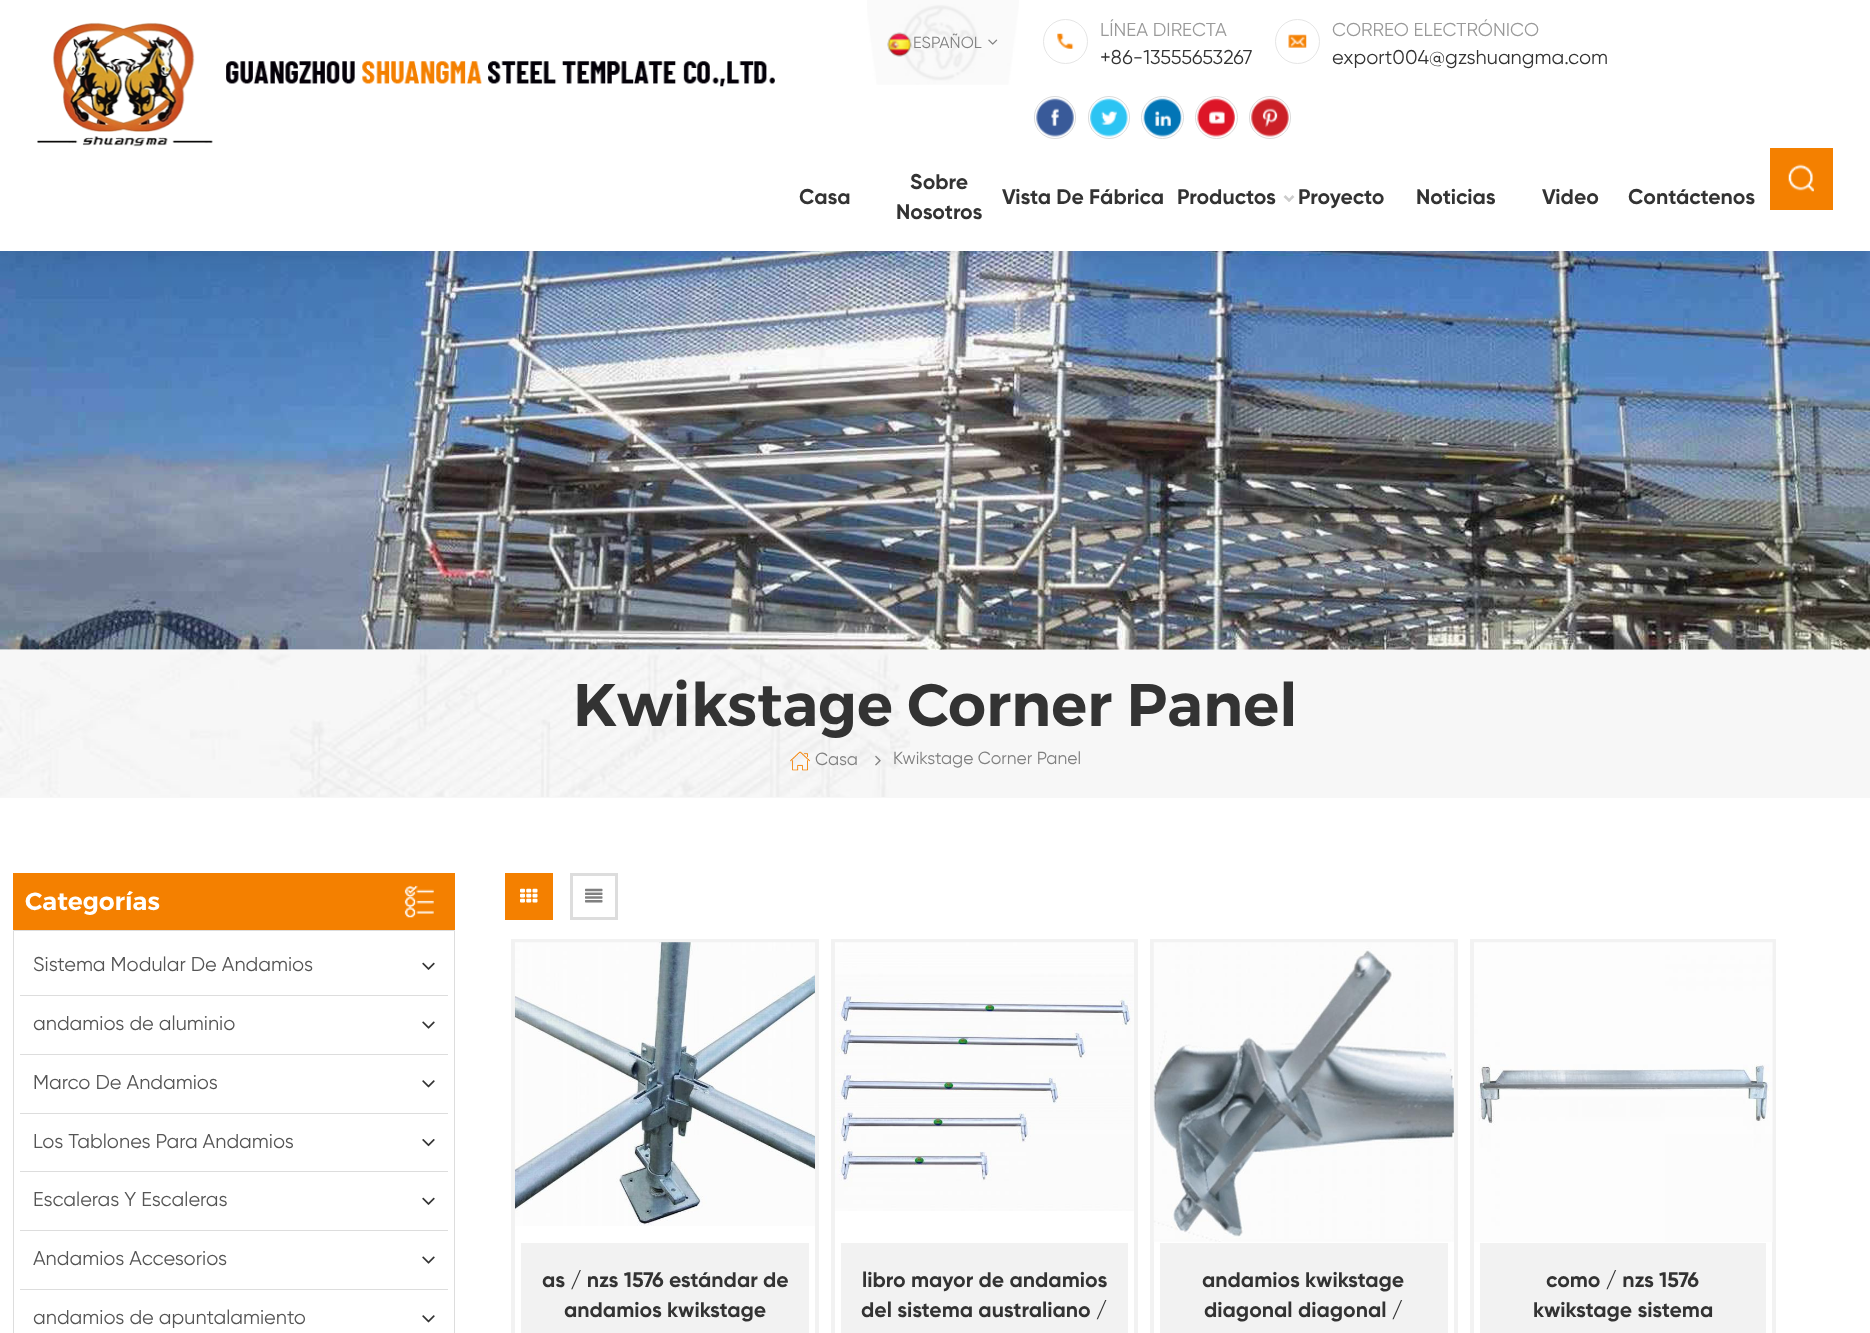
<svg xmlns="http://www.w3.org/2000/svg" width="1870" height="1333">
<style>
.a{font:16.25px Gilroy;fill:#808080}
.b{font:18.75px Gilroy;fill:#999}
.c{font:20px Gilroy;fill:#333}
.d{font:bold 21.25px Gilroy;fill:#333}
.e{font:600 60px Montserrat;fill:#333}
.f{font:17.5px Gilroy;fill:#808080}
.g{font:600 25px Montserrat;fill:#fff}
.h{font:20px Gilroy;fill:#555}
</style>
<rect width="100%" height="100%" fill="#fff"/>
<image href="14.png" x="0" y="251" width="1870" height="399"/>
<path fill="#0000001a" filter="blur(12.5px)" d="M-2 -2h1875v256H-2z"/>
<path fill="#fff" d="M0 0h1870v251H0z"/>
<image href="1.png" x="37" y="22" width="176" height="125"/>
<image href="2.png" x="226" y="61" width="549" height="26"/>
<image href="3.png" x="867" y="0" width="152" height="85"/>
<image href="4.png" x="887" y="32" width="25" height="25"/>
<image href="5.png" x="988" y="39" width="10" height="6"/>
<image href="6.png" x="1057" y="33" width="17" height="16"/>
<circle fill="none" stroke="#e5e5e5" cx="1065.5" cy="41.5" r="22"/>
<image href="7.png" x="1288" y="34" width="19" height="14"/>
<circle fill="none" stroke="#e5e5e5" cx="1297.5" cy="41.5" r="22"/>
<image href="8.png" x="1036" y="98" width="38" height="39"/>
<rect fill="none" stroke="#dbdbdb" x="1034.5" y="96.5" width="41" height="42" rx="20.5"/>
<image href="9.png" x="1090" y="98" width="38" height="39"/>
<rect fill="none" stroke="#dbdbdb" x="1088.5" y="96.5" width="41" height="42" rx="20.5"/>
<image href="10.png" x="1143" y="98" width="39" height="39"/>
<circle fill="none" stroke="#dbdbdb" cx="1162.5" cy="117.5" r="21"/>
<image href="11.png" x="1197" y="98" width="38" height="39"/>
<circle fill="none" stroke="#dbdbdb" cx="1216.5" cy="117.5" r="21"/>
<image href="12.png" x="1251" y="98" width="38" height="39"/>
<rect fill="none" stroke="#dbdbdb" x="1249.5" y="96.5" width="41" height="42" rx="20.5"/>
<path fill="#ccc" d="M1285.5 195l5.5 5.5l-2 1.5l-5.5-5z"/>
<path fill="#ccc" d="M1287.5 200.5l5-5.5l2 2l-5.5 5z"/>
<path fill="#f48000" d="M1770 148h63v62H1770z"/>
<image href="13.png" x="1788" y="164" width="26" height="28"/>
<path fill="#f7f7f7" d="M0 650h1870v148H0z"/>
<image href="15.png" x="0" y="649" width="925" height="148"/>
<image href="16.png" x="790" y="751" width="20" height="20"/>
<image href="17.png" x="875" y="755" width="6" height="11"/>
<path fill="#f48000" d="M13 873h442v57H13z"/>
<image href="18.png" x="404" y="885" width="30" height="33"/>
<path fill="none" stroke="#ddd" d="M13.5 930.5h441v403H13.5z"/>
<path fill="#ddd" d="M20 995h428v1H20z"/>
<image href="19.png" x="422" y="962" width="13" height="8"/>
<path fill="#ddd" d="M20 1054h428v1H20z"/>
<image href="20.png" x="422" y="1021" width="13" height="8"/>
<path fill="#ddd" d="M20 1113h428v1H20z"/>
<image href="21.png" x="422" y="1080" width="13" height="8"/>
<path fill="#ddd" d="M20 1171h428v1H20z"/>
<image href="22.png" x="422" y="1139" width="13" height="8"/>
<path fill="#ddd" d="M20 1230h428v1H20z"/>
<image href="19.png" x="422" y="1197" width="13" height="8"/>
<path fill="#ddd" d="M20 1289h428v1H20z"/>
<image href="20.png" x="422" y="1256" width="13" height="8"/>
<image href="21.png" x="422" y="1315" width="13" height="8"/>
<path fill="#f48000" d="M505 873h48v47H505z"/>
<image href="23.png" x="520" y="888" width="18" height="15"/>
<path fill="none" stroke="#ddd" stroke-width="3" d="M571.5 874.5h45v44H571.5z"/>
<image href="24.png" x="585" y="888" width="18" height="15"/>
<path fill="none" stroke="#f2f2f2" stroke-width="4" d="M513 941h304v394H513z"/>
<image href="25.png" x="515" y="942" width="300" height="284"/>
<path fill="#f2f2f2" d="M521 1243h288v90H521z"/>
<path fill="none" stroke="#f2f2f2" stroke-width="4" d="M833 941h303v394H833z"/>
<image href="26.png" x="835" y="942" width="299" height="269"/>
<path fill="#f2f2f2" d="M841 1243h287v90H841z"/>
<path fill="none" stroke="#f2f2f2" stroke-width="4" d="M1152 941h304v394H1152z"/>
<image href="27.png" x="1153" y="942" width="301" height="300"/>
<path fill="#f2f2f2" d="M1160 1243h288v90H1160z"/>
<path fill="none" stroke="#f2f2f2" stroke-width="4" d="M1472 941h302v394H1472z"/>
<image href="28.png" x="1474" y="942" width="299" height="300"/>
<path fill="#f2f2f2" d="M1480 1243h286v90H1480z"/>
<text class="a" x="913" y="48">ESPAÑOL</text>
<text class="b" x="1100" y="36">LÍNEA DIRECTA</text>
<text class="c" x="1100" y="64">+86-13555653267</text>
<text class="b" x="1332" y="36">CORREO ELECTRÓNICO</text>
<text class="c" x="1332" y="64">export004@gzshuangma.com</text>
<text class="d" x="799" y="204">Casa</text>
<text class="d" x="910" y="189">Sobre</text>
<text class="d" x="896" y="219">Nosotros</text>
<text class="d" x="1002" y="204">Vista De Fábrica</text>
<text class="d" x="1177" y="204">Productos</text>
<text class="d" x="1298" y="204">Proyecto</text>
<text class="d" x="1416" y="204">Noticias</text>
<text class="d" x="1542" y="204">Video</text>
<text class="d" x="1628" y="204">Contáctenos</text>
<text class="e" x="573" y="726">Kwikstage Corner Panel</text>
<text class="f" x="815" y="765">Casa</text>
<text class="f" x="893" y="764">Kwikstage Corner Panel</text>
<text class="g" x="25" y="910">Categorías</text>
<text class="h" x="33" y="971">Sistema Modular De Andamios</text>
<text class="h" x="33" y="1030">andamios de aluminio</text>
<text class="h" x="33" y="1089">Marco De Andamios</text>
<text class="h" x="33" y="1148">Los Tablones Para Andamios</text>
<text class="h" x="33" y="1206">Escaleras Y Escaleras</text>
<text class="h" x="33" y="1265">Andamios Accesorios</text>
<text class="h" x="33" y="1324">andamios de apuntalamiento</text>
<text class="d" x="542" y="1287">as / nzs 1576 estándar de</text>
<text class="d" x="564" y="1317">andamios kwikstage</text>
<text class="d" x="862" y="1287">libro mayor de andamios</text>
<text class="d" x="861" y="1317">del sistema australiano /</text>
<text class="d" x="1202" y="1287">andamios kwikstage</text>
<text class="d" x="1204" y="1317">diagonal diagonal /</text>
<text class="d" x="1546" y="1287">como / nzs 1576</text>
<text class="d" x="1533" y="1317">kwikstage sistema</text>
</svg>
